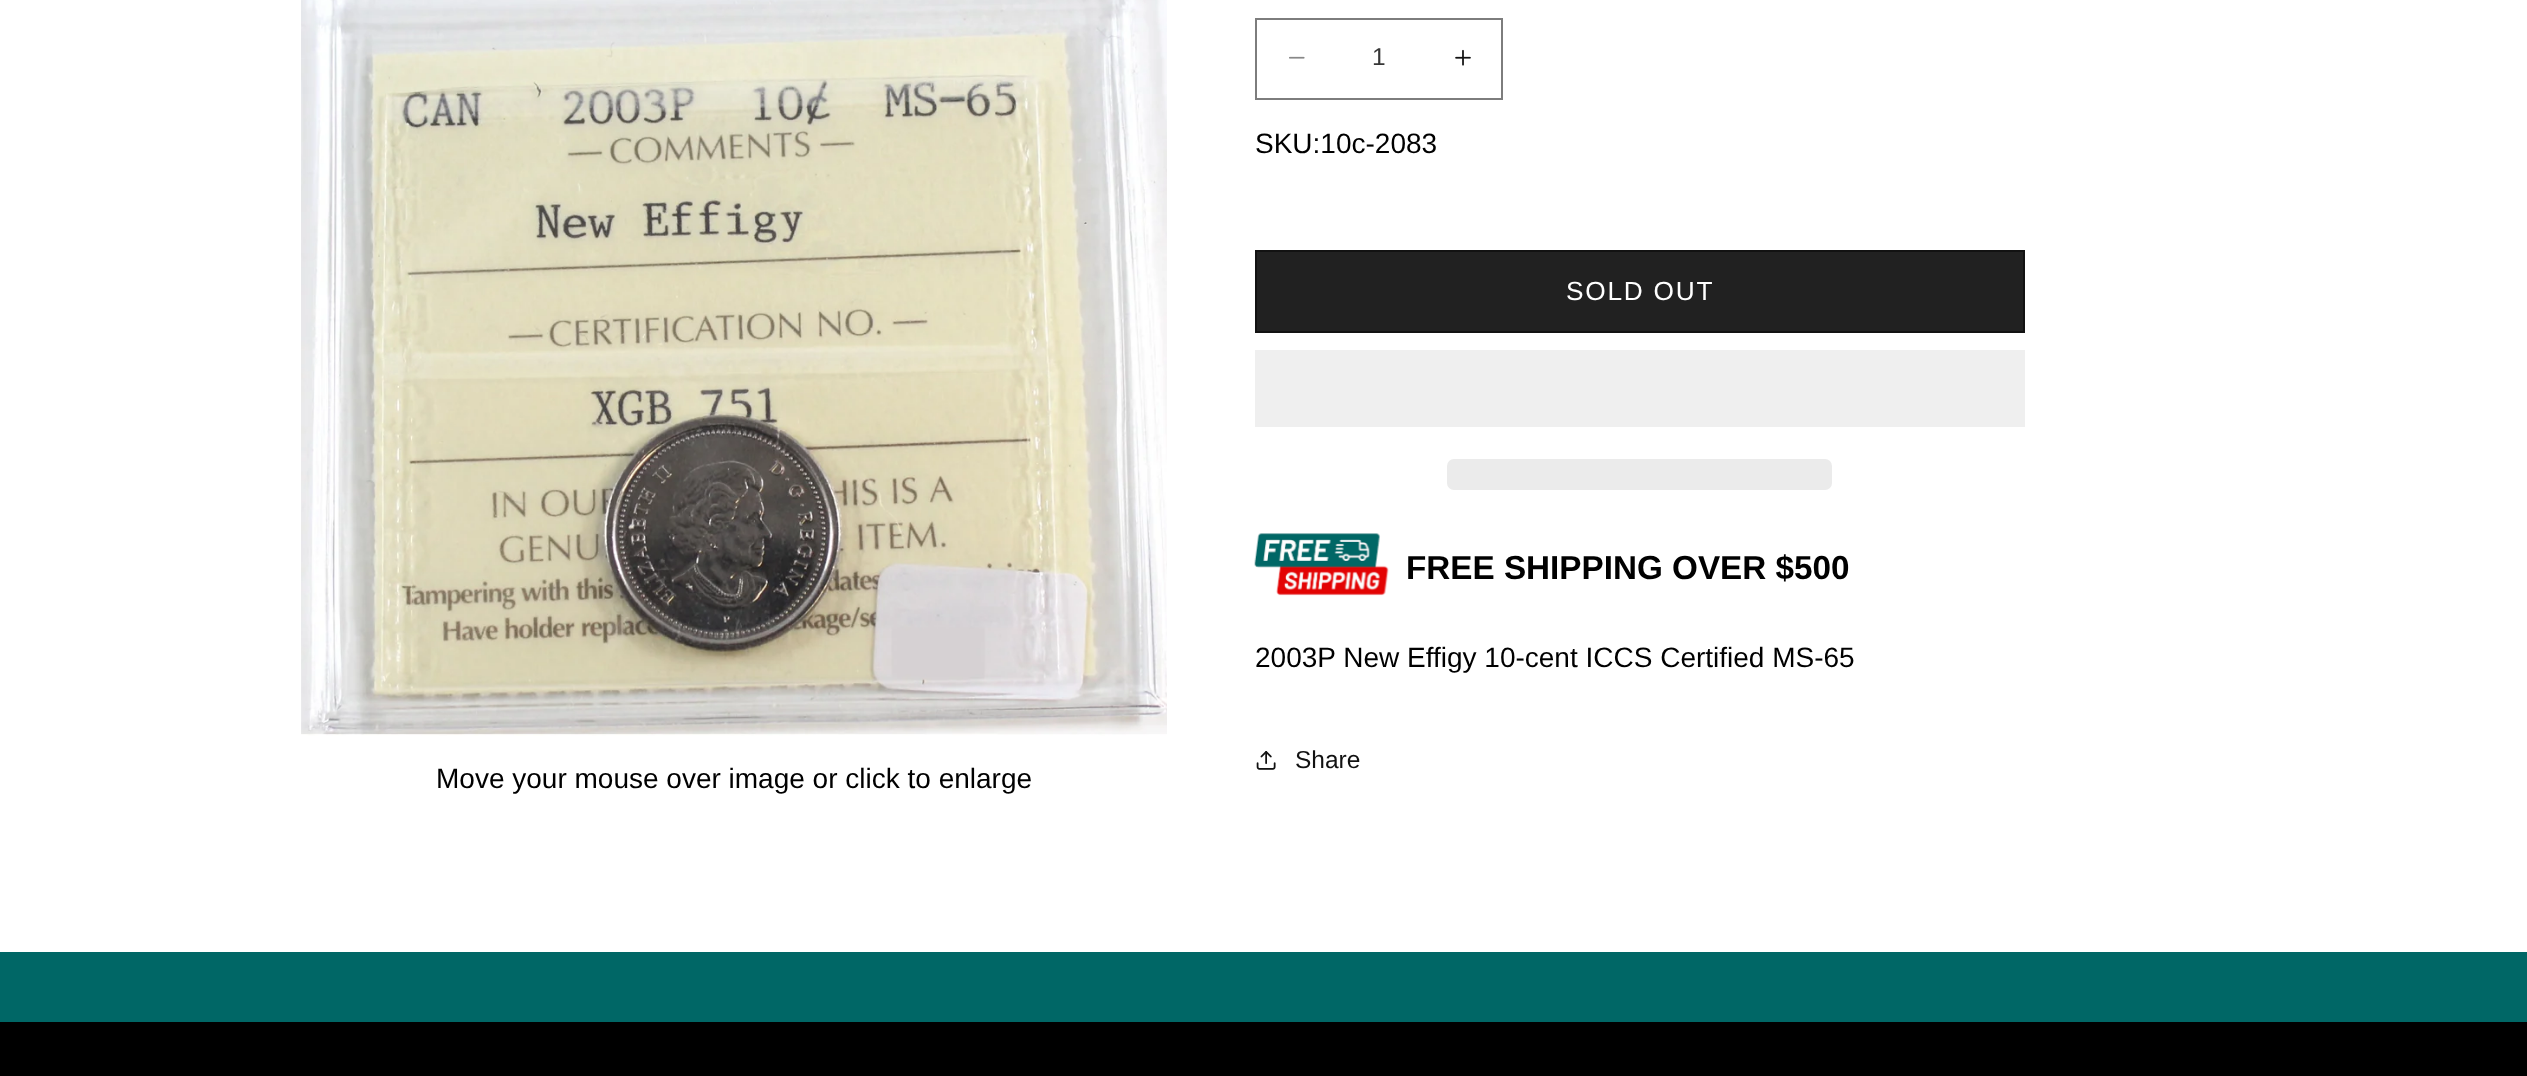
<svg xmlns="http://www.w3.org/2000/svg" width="2527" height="1076">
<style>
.a{font:24.5px Liberation Sans;fill:#363636}
.b{font:28px Liberation Sans;fill:#000}
.c{font:26.25px Liberation Sans;letter-spacing:1.75px;fill:#fff}
.d{font:bold 33.25px Liberation Sans;fill:#000}
.e{font:24.5px Liberation Sans;fill:#121212}
</style>
<rect width="100%" height="100%" fill="#fff"/>
<image href="1.png" x="1289" y="56" width="16" height="3"/>
<image href="2.png" x="1455" y="49" width="16" height="17"/>
<path fill="none" stroke="#7d7d7d" stroke-width="2" d="M1256 19h246v80H1256z"/>
<path fill="#212121" d="M1257 252h766v79H1257z"/>
<path fill="none" stroke="#121212" stroke-width="2" d="M1256 251h768v81H1256z"/>
<path fill="#efefef" d="M1255 350h770v77H1255z"/>
<rect fill="#ebebeb" x="1447" y="459" width="385" height="31" rx="7"/>
<image href="3.png" x="1254" y="533" width="135" height="63"/>
<image href="4.png" x="1256" y="751" width="20" height="19"/>
<image href="5.png" x="301" y="0" width="866" height="736"/>
<path fill="#000" d="M0 1022h2527v54H0z"/>
<path fill="#006766" d="M0 952h2527v70H0z"/>
<text class="a" x="1372" y="65">1</text>
<text class="b" x="1255" y="153">SKU:10c-2083</text>
<text class="c" x="1566" y="300">SOLD OUT</text>
<text class="d" x="1406" y="579">FREE SHIPPING OVER $500</text>
<text class="b" x="1255" y="667">2003P New Effigy 10-cent ICCS Certified MS-65</text>
<text class="e" x="1295" y="768">Share</text>
<text class="b" x="436" y="788">Move your mouse over image or click to enlarge</text>
</svg>
